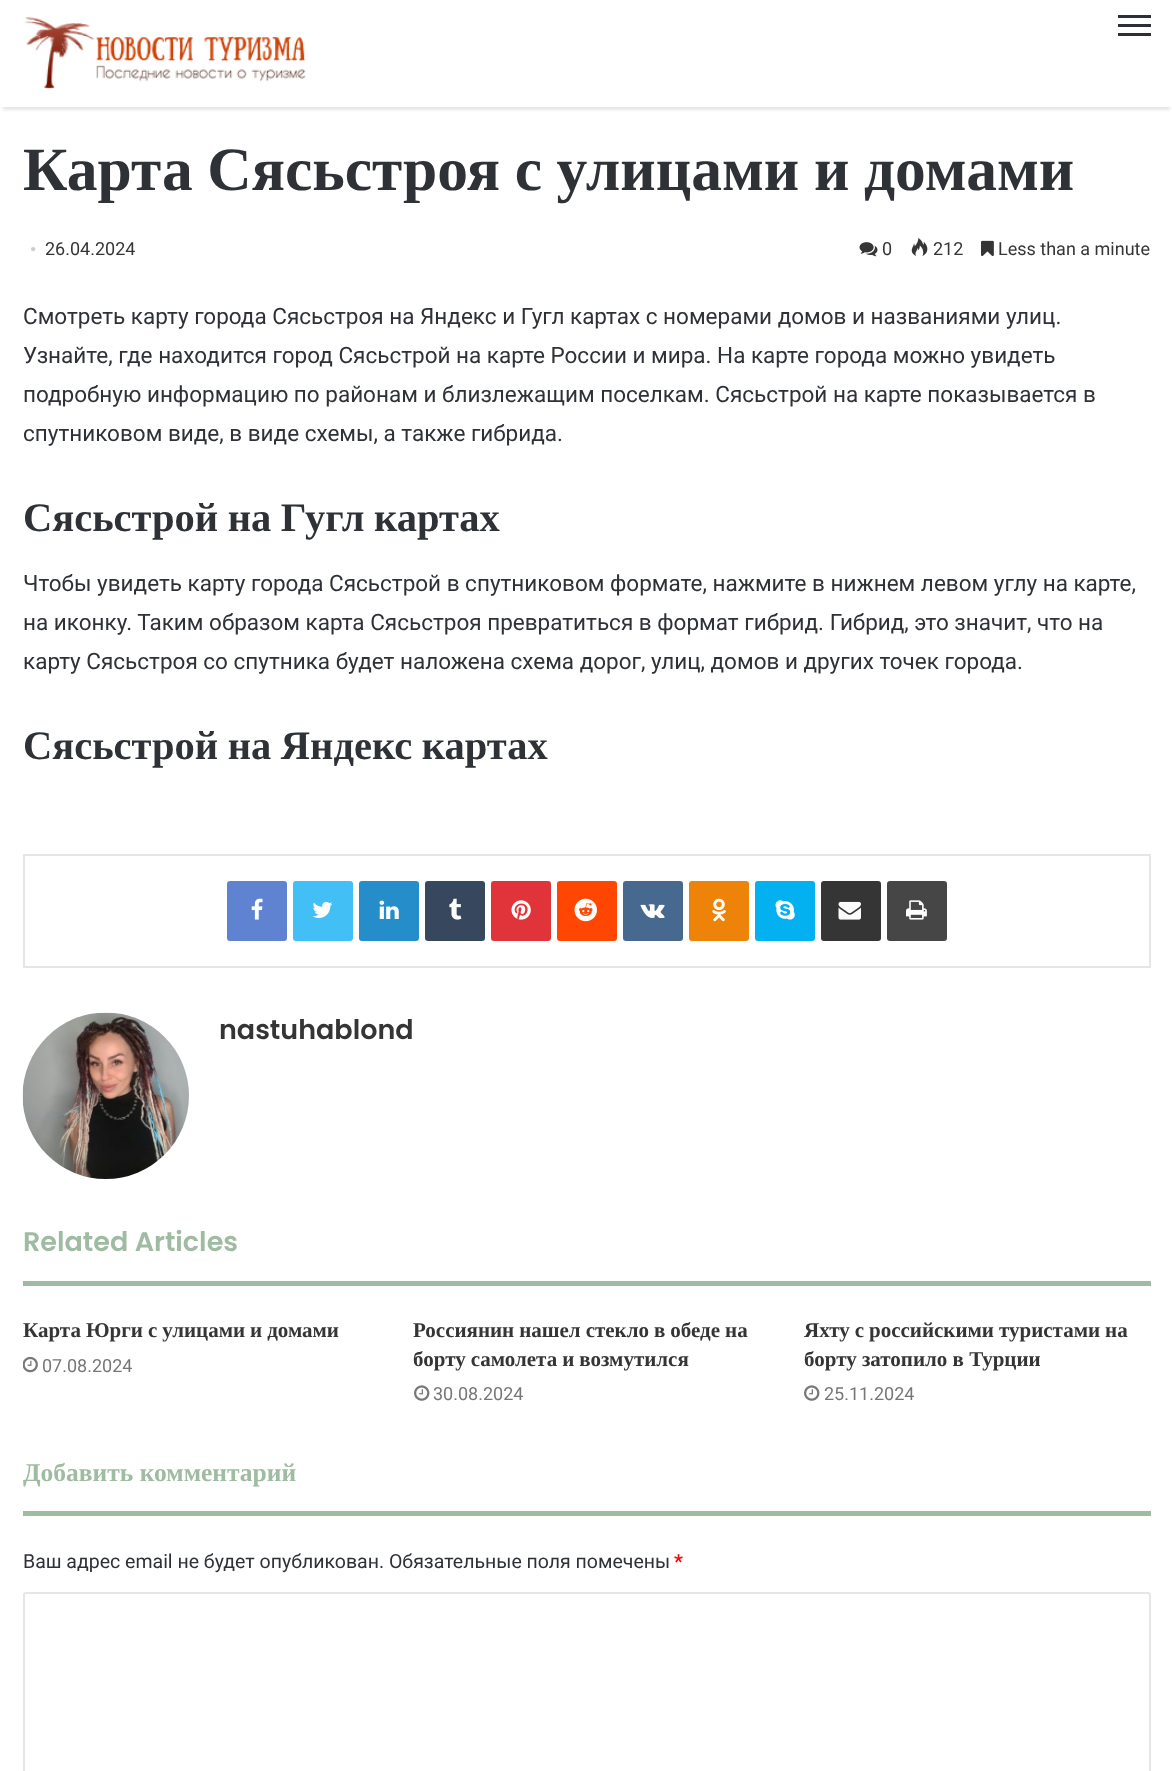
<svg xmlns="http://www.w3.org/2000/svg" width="1172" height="1771">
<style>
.a{font:bold 61.5px Liberation Serif;fill:#2e3136}
.b{font:18px Liberation Serif;fill:#cdcdcd}
.c{font:18px Roboto;fill:#353535}
.d{font:22.5px Roboto;fill:#2e3136}
.e{font:bold 40.5px Liberation Serif;fill:#2e3136}
.f{font:600 27px Poppins;fill:#353535}
.g{font:600 27px Poppins;fill:#9fbba1}
.h{font:bold 21px Liberation Serif;fill:#353535}
.i{font:18px Roboto;fill:#777}
.j{font:bold 25.5px Liberation Serif;fill:#9fbba1}
.k{font:19.5px Roboto;fill:#2e3136}
.l{font:bold 19.5px Roboto;fill:#ff0303}
</style>
<rect width="100%" height="100%" fill="#fff"/>
<path fill="#0000001a" filter="blur(1.5px)" d="M3 9h1167v101H3z"/>
<path fill="#fff" d="M1 7h1171v100H1z"/>
<image href="1.png" x="24" y="17" width="282" height="72"/>
<path fill="#2c2f34" d="M1118 24h33v3H1118z"/>
<path fill="#2c2f34" d="M1118 15h33v3H1118z"/>
<path fill="#2c2f34" d="M1118 33h33v3H1118z"/>
<image href="2.png" x="859" y="242" width="19" height="15"/>
<image href="3.png" x="911" y="238" width="17" height="18"/>
<image href="4.png" x="981" y="240" width="13" height="16"/>
<path fill="none" stroke="#e6e6e6" stroke-width="2" d="M24 855h1126v112H24z"/>
<rect fill="#5f83d1" x="227" y="881" width="60" height="60" rx="3"/>
<image href="5.png" x="251" y="898" width="12" height="22"/>
<rect fill="#42c0f5" x="293" y="881" width="60" height="60" rx="3"/>
<image href="6.png" x="312" y="901" width="21" height="17"/>
<rect fill="#258dc9" x="359" y="881" width="60" height="60" rx="3"/>
<image href="7.png" x="379" y="900" width="20" height="19"/>
<rect fill="#37485e" x="425" y="881" width="60" height="60" rx="3"/>
<image href="8.png" x="449" y="898" width="13" height="22"/>
<rect fill="#e1333a" x="491" y="881" width="60" height="60" rx="3"/>
<image href="9.png" x="511" y="900" width="20" height="20"/>
<rect fill="#ff4703" x="557" y="881" width="60" height="60" rx="3"/>
<image href="10.png" x="574" y="898" width="23" height="24"/>
<rect fill="#47688f" x="623" y="881" width="60" height="60" rx="3"/>
<image href="11.png" x="640" y="904" width="25" height="14"/>
<rect fill="#ee830a" x="689" y="881" width="60" height="60" rx="3"/>
<image href="12.png" x="712" y="898" width="14" height="24"/>
<rect fill="#03b0f0" x="755" y="881" width="60" height="60" rx="3"/>
<image href="13.png" x="775" y="900" width="20" height="20"/>
<rect fill="#353535" x="821" y="881" width="60" height="60" rx="3"/>
<image href="14.png" x="838" y="901" width="23" height="19"/>
<rect fill="#464646" x="887" y="881" width="60" height="60" rx="3"/>
<image href="15.png" x="906" y="900" width="21" height="20"/>
<image href="16.png" x="22" y="1012" width="167" height="167"/>
<path fill="#9fbba1" d="M23 1281h1128v5H23z"/>
<image href="17.png" x="23" y="1356" width="15" height="17"/>
<image href="18.png" x="414" y="1385" width="16" height="16"/>
<image href="18.png" x="804" y="1385" width="16" height="16"/>
<path fill="#9fbba1" d="M23 1511h1128v5H23z"/>
<rect fill="none" stroke="#e6e6e6" stroke-width="2" x="24" y="1593" width="1126" height="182" rx="2"/>
<text class="a" x="23" y="190" word-spacing="-0.75">Карта Сясьстроя с улицами и домами</text>
<text class="b" x="30" y="255">•</text>
<text class="c" x="45" y="255">26.04.2024</text>
<text class="c" x="882" y="255">0</text>
<text class="c" x="933" y="255">212</text>
<text class="c" x="998" y="255">Less than a minute</text>
<text class="d" x="23" y="324">Смотреть карту города Сясьстроя на Яндекс и Гугл картах с номерами домов и названиями улиц.</text>
<text class="d" x="23" y="363">Узнайте, где находится город Сясьстрой на карте России и мира. На карте города можно увидеть</text>
<text class="d" x="23" y="402">подробную информацию по районам и близлежащим поселкам. Сясьстрой на карте показывается в</text>
<text class="d" x="23" y="441">спутниковом виде, в виде схемы, а также гибрида.</text>
<text class="e" x="23" y="531" word-spacing="-0.5">Сясьстрой на Гугл картах</text>
<text class="d" x="23" y="591">Чтобы увидеть карту города Сясьстрой в спутниковом формате, нажмите в нижнем левом углу на карте,</text>
<text class="d" x="23" y="630">на иконку. Таким образом карта Сясьстроя превратиться в формат гибрид. Гибрид, это значит, что на</text>
<text class="d" x="23" y="669">карту Сясьстроя со спутника будет наложена схема дорог, улиц, домов и других точек города.</text>
<text class="e" x="23" y="759" word-spacing="-0.5">Сясьстрой на Яндекс картах</text>
<text class="f" x="219" y="1039">nastuhablond</text>
<text class="g" x="23" y="1251">Related Articles</text>
<text class="h" x="23" y="1337" word-spacing="-0.25">Карта Юрги с улицами и домами</text>
<text class="i" x="42" y="1372">07.08.2024</text>
<text class="h" x="413" y="1337" word-spacing="-0.25">Россиянин нашел стекло в обеде на</text>
<text class="h" x="413" y="1366" word-spacing="-0.25">борту самолета и возмутился</text>
<text class="i" x="433" y="1400">30.08.2024</text>
<text class="h" x="804" y="1337" word-spacing="-0.25">Яхту с российскими туристами на</text>
<text class="h" x="804" y="1366">борту затопило в Турции</text>
<text class="i" x="824" y="1400">25.11.2024</text>
<text class="j" x="23" y="1481">Добавить комментарий</text>
<text class="k" x="23" y="1568">Ваш адрес email не будет опубликован. Обязательные поля помечены</text>
<text class="l" x="674" y="1568">*</text>
</svg>
